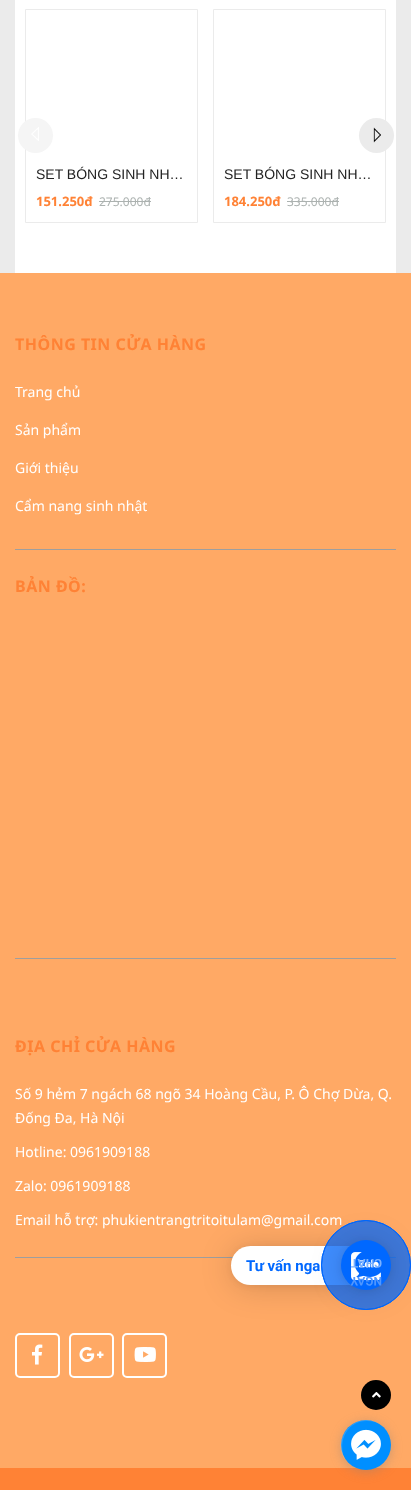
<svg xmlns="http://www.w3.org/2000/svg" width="411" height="1490">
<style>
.a{font:14px Liberation Sans;fill:#222}
.b{font:bold 13px Noto Sans;fill:#ff8235}
.c{font:12px Noto Sans;fill:#acb2b0}
.d{font:bold 16px Noto Sans;letter-spacing:0.5px;fill:#ff8235}
.e{font:14px Noto Sans;fill:#fff}
.f{font:bold 15px Roboto;fill:#0068ff}
.g{font:bold 12px Roboto;fill:#7bb1ff}
.h{font:bold 12px Roboto;fill:#5197fe}
</style>
<rect width="100%" height="100%" fill="#ebebeb"/>
<path fill="#fff" d="M15 0h381v273H15z"/>
<path fill="none" stroke="#ebebeb" d="M25.5 9.5h172v213H25.5z"/>
<circle fill="#f5f5f5" cx="35.5" cy="135.5" r="17.5"/>
<image href="1.png" x="31" y="127" width="8" height="14"/>
<path fill="none" stroke="#ebebeb" d="M213.5 9.5h172v213H213.5z"/>
<circle fill="#ebebeb" cx="376.5" cy="135.5" r="17.5"/>
<image href="2.png" x="373" y="127" width="8" height="16"/>
<path fill="#acb2b0" d="M99 201h52v1H99z"/>
<path fill="#acb2b0" d="M287 201h52v1H287z"/>
<path fill="#ffa965" d="M0 273h411v1195H0z"/>
<path fill="#9e9e9e" d="M15 549h381v1H15z"/>
<path fill="#9e9e9e" d="M15 958h381v1H15z"/>
<path fill="#9e9e9e" d="M15 1257h381v1H15z"/>
<rect fill="none" stroke="#fff" stroke-width="2" x="16" y="1334" width="43" height="43" rx="4"/>
<image href="3.png" x="32" y="1344" width="11" height="21"/>
<rect fill="none" stroke="#fff" stroke-width="2" x="70" y="1334" width="43" height="43" rx="4"/>
<image href="4.png" x="79" y="1347" width="25" height="15"/>
<rect fill="none" stroke="#fff" stroke-width="2" x="123" y="1334" width="43" height="43" rx="4"/>
<image href="5.png" x="134" y="1347" width="22" height="15"/>
<path fill="#ff8235" d="M0 1468h411v22H0z"/>
<circle fill="#000" cx="376" cy="1395" r="15"/>
<image href="6.png" x="372" y="1392" width="9" height="6"/>
<rect fill="#00000029" filter="blur(16px)" x="231" y="1248" width="122" height="39" rx="19.5"/>
<rect fill="#0000000f" filter="blur(3px)" x="231" y="1247" width="122" height="39" rx="19.5"/>
<path fill="#fff" d="M250.5 1246h102.5v39h-102.5c-11 0-19.5-8.5-19.5-19.5c0-11 8.5-19.5 19.5-19.5z"/>
<rect fill="#80808066" filter="blur(5.5px)" x="341" y="1422" width="50" height="50" rx="25"/>
<circle fill="#008fff" cx="366" cy="1445" r="25"/>
<path fill="#ffffff26" d="M367 1421c5 0 9 1 13 3c-24-15-51 15-34 37c-9-15-2-40 21-40z"/>
<image href="8.png" x="351" y="1429" width="30" height="31"/>
<text class="a" x="36" y="179">SET BÓNG SINH NH…</text>
<text class="b" x="36" y="206">151.250đ</text>
<text class="c" x="99" y="206">275.000đ</text>
<text class="a" x="224" y="179">SET BÓNG SINH NH…</text>
<text class="b" x="224" y="206">184.250đ</text>
<text class="c" x="287" y="206">335.000đ</text>
<text class="d" x="15" y="350">THÔNG TIN CỬA HÀNG</text>
<text class="e" x="15" y="397">Trang chủ</text>
<text class="e" x="15" y="435">Sản phẩm</text>
<text class="e" x="15" y="473">Giới thiệu</text>
<text class="e" x="15" y="511">Cẩm nang sinh nhật</text>
<text class="d" x="15" y="592">BẢN ĐỒ:</text>
<text class="d" x="15" y="1052">ĐỊA CHỈ CỬA HÀNG</text>
<text class="e" x="15" y="1099">Số 9 hẻm 7 ngách 68 ngõ 34 Hoàng Cầu, P. Ô Chợ Dừa, Q.</text>
<text class="e" x="15" y="1123">Đống Đa, Hà Nội</text>
<text class="e" x="15" y="1157">Hotline: 0961909188</text>
<text class="e" x="15" y="1191">Zalo: 0961909188</text>
<text class="e" x="15" y="1225">Email hỗ trợ: phukientrangtritoitulam@gmail.com</text>
<text class="f" x="246" y="1271">Tư vấn nga</text>
<circle fill="#0068ff80" stroke="#0068ff" cx="366" cy="1265" r="44.5"/>
<circle fill="#0068ff80" stroke="#0068ff" cx="366" cy="1265" r="44.5"/>
<rect fill="#0000000f" filter="blur(3px)" x="341" y="1241" width="50" height="50" rx="25"/>
<rect fill="#00000029" filter="blur(16px)" x="341" y="1242" width="50" height="50" rx="25"/>
<circle fill="#0068ff" cx="366" cy="1265" r="25"/>
<image href="7.png" x="351" y="1252" width="30" height="28"/>
<text class="g" x="382" y="1259" transform="rotate(180 382 1259)">CHAT</text>
<text class="h" x="382" y="1277" transform="rotate(180 382 1277)">NGAY</text>
</svg>
